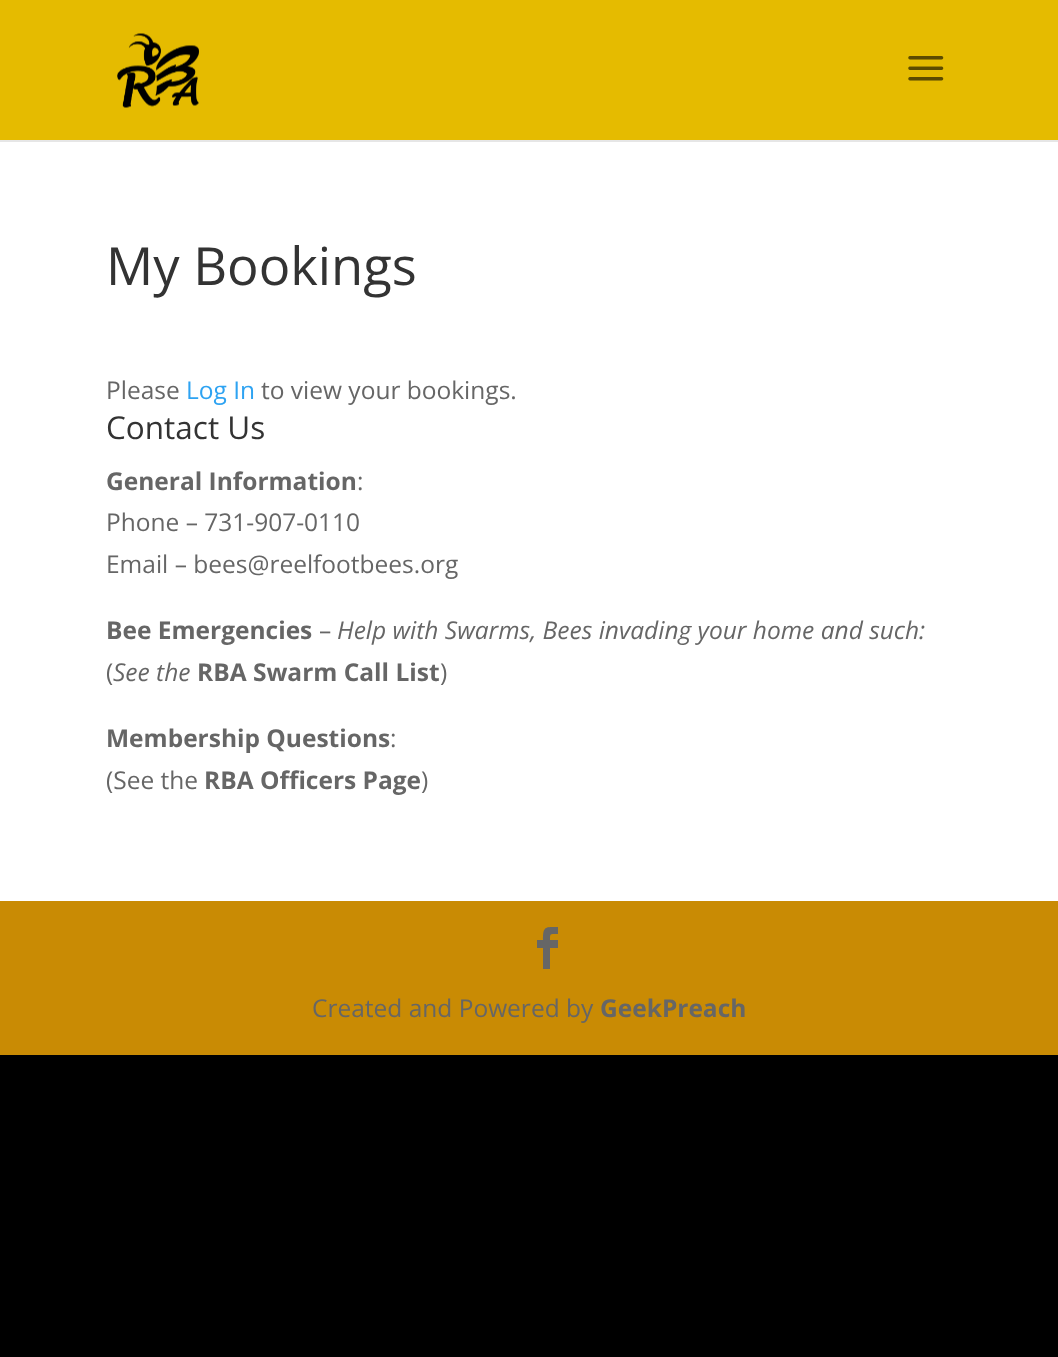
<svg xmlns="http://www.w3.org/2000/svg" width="1058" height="1357">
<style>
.a{font:52.5px Open Sans;fill:#333}
.b{font:24.5px Open Sans;fill:#666}
.c{font:24.5px Open Sans;fill:#2ea3f2}
.d{font:31.5px Open Sans;fill:#333}
.e{font:bold 24.5px Open Sans;fill:#666}
.f{font:italic 24.5px Open Sans;fill:#666}
</style>
<rect width="100%" height="100%" fill="#000"/>
<path fill="#e6e6e6" d="M0 140v2h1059v-140v138z"/>
<path fill="#e5bb00" d="M0 0h1058v140H0z"/>
<image href="1.png" x="117" y="33" width="83" height="75"/>
<image href="2.png" x="908" y="56" width="36" height="25"/>
<path fill="#fff" d="M0 142h1058v759H0z"/>
<path fill="#c98b04" d="M0 901h1058v154H0z"/>
<path fill="#666" d="M543 969h7v-21h8v-8h-8c0-7 0-6 8-6v-7c-13 0-15-1-15 13h-6v8h6z"/>
<text class="a" x="106" y="285">My Bookings</text>
<text class="b" x="106" y="399">Please</text>
<text class="c" x="186" y="399">Log In</text>
<text class="b" x="261" y="399">to view your bookings.</text>
<text class="d" x="106" y="439">Contact Us</text>
<text class="e" x="106" y="490">General Information</text>
<text class="b" x="357" y="490">:</text>
<text class="b" x="106" y="531">Phone – 731-907-0110</text>
<text class="b" x="106" y="573">Email – bees@reelfootbees.org</text>
<text class="e" x="106" y="639">Bee Emergencies</text>
<text class="b" x="319" y="639">–</text>
<text class="f" x="337" y="639">Help with Swarms, Bees invading your home and such:</text>
<text class="b" x="106" y="681">(</text>
<text class="f" x="113" y="681">See the</text>
<text class="e" x="197" y="681">RBA Swarm Call List</text>
<text class="b" x="440" y="681">)</text>
<text class="e" x="106" y="747">Membership Questions</text>
<text class="b" x="390" y="747">:</text>
<text class="b" x="106" y="789">(See the</text>
<text class="e" x="204" y="789">RBA Officers Page</text>
<text class="b" x="421" y="789">)</text>
<text class="b" x="312" y="1017">Created and Powered by</text>
<text class="e" x="600" y="1017">GeekPreach</text>
</svg>
